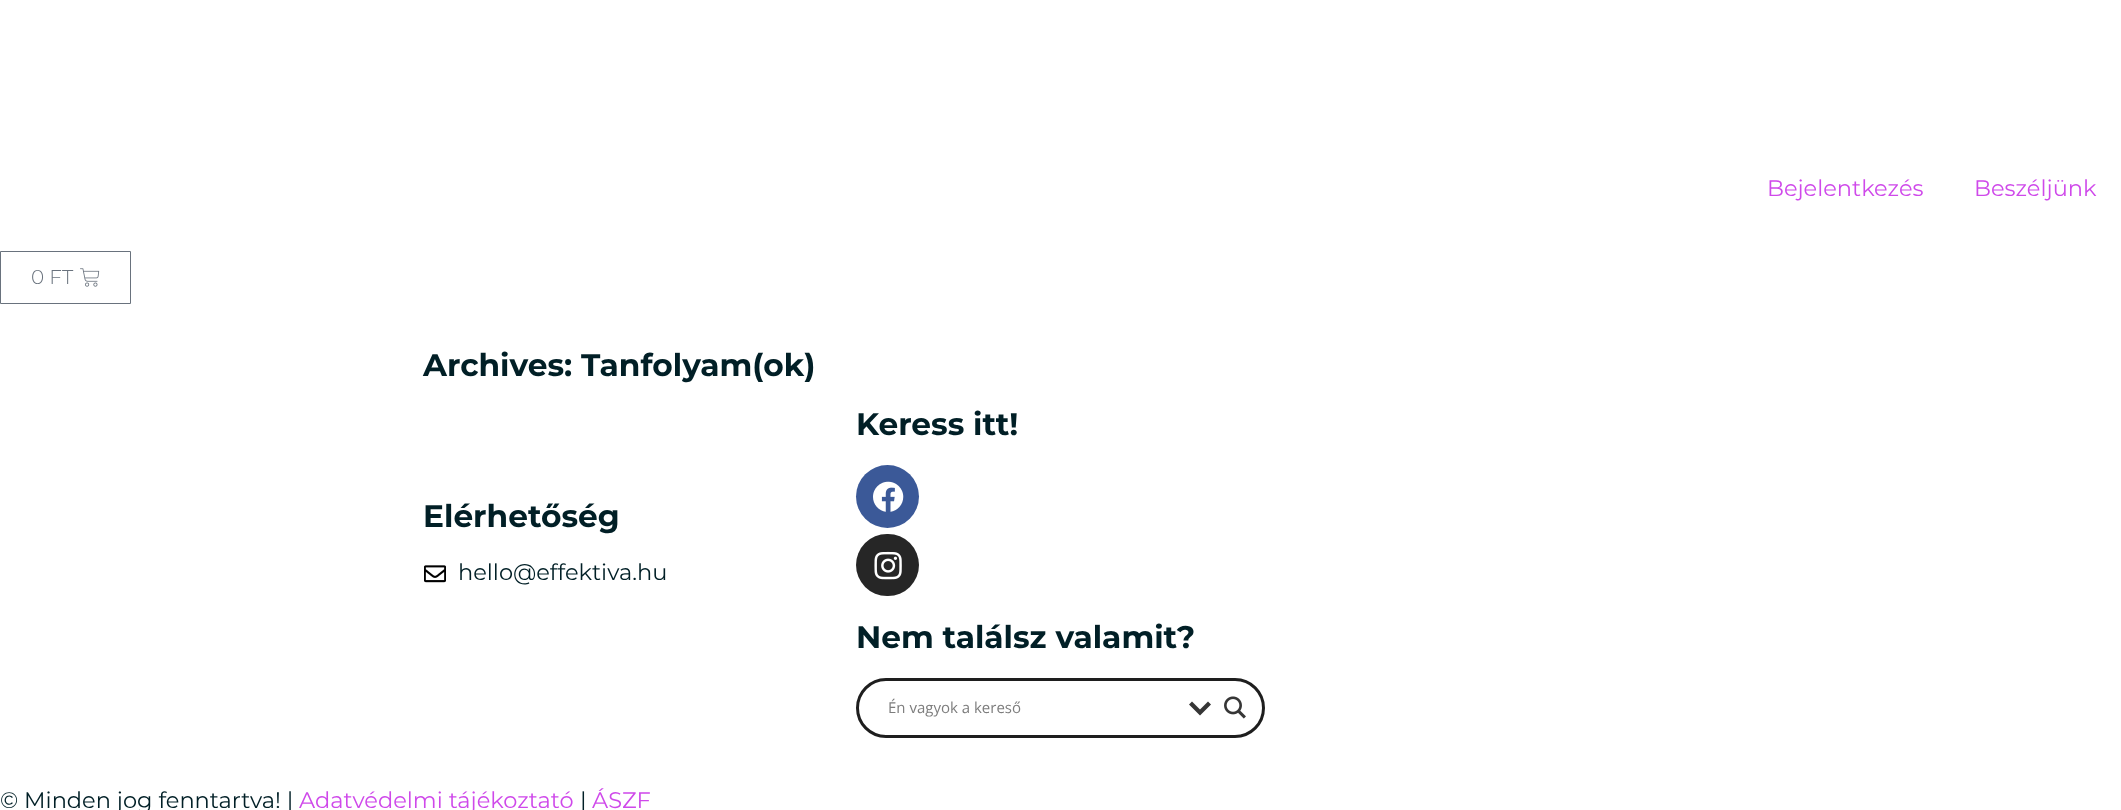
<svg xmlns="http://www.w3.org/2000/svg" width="2121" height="810">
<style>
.a{font:22.5px Montserrat;fill:#cf49ea}
.b{font:300 20px Montserrat;fill:#69727d}
.c{font:bold 31.25px Montserrat;fill:#011f26}
.d{font:22.5px Montserrat;fill:#011f26}
.e{font:15px Open Sans;fill:#7d7d7d}
</style>
<rect width="100%" height="100%" fill="#fff"/>
<path fill="none" stroke="#69727d" d="M0.5 251.5h130v52H0.5z"/>
<image href="1.png" x="80" y="268" width="20" height="19"/>
<image href="2.png" x="424" y="565" width="22" height="18"/>
<circle fill="#3b5998" cx="887.5" cy="496.5" r="31.5"/>
<image href="3.png" x="873" y="481" width="31" height="31"/>
<rect fill="#262626" x="856" y="534" width="63" height="62" rx="31"/>
<image href="4.png" x="874" y="551" width="28" height="29"/>
<rect fill="none" stroke="#1e1e1e" stroke-width="3" x="857.5" y="679.5" width="406" height="57" rx="28.5"/>
<path fill="#363636" d="M1208 701.5l3 3l-11 11l-11-11l3-3l8 8z"/>
<image href="5.png" x="1224" y="696" width="22" height="23"/>
<text class="a" x="1767" y="196">Bejelentkezés</text>
<text class="a" x="1974" y="196">Beszéljünk</text>
<text class="b" x="31" y="284">0 FT</text>
<text class="c" x="423" y="376">Archives: Tanfolyam(ok)</text>
<text class="c" x="423" y="527">Elérhetőség</text>
<text class="d" x="458" y="580">hello@effektiva.hu</text>
<text class="c" x="856" y="435">Keress itt!</text>
<text class="c" x="856" y="648">Nem találsz valamit?</text>
<text class="e" x="888" y="713">Én vagyok a kereső</text>
<text class="d" x="0" y="808">© Minden jog fenntartva! |</text>
<text class="a" x="299" y="808">Adatvédelmi tájékoztató</text>
<text class="d" x="580" y="808">|</text>
<text class="a" x="592" y="808">ÁSZF</text>
</svg>
